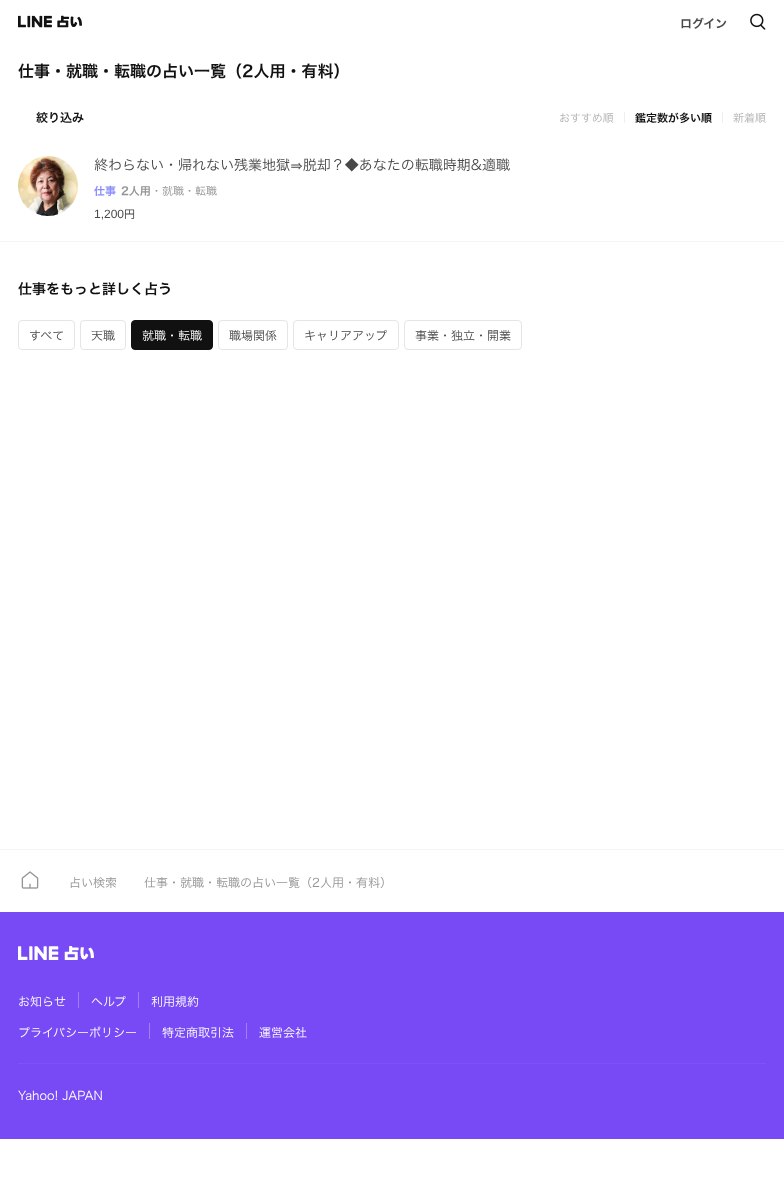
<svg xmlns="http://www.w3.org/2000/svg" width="784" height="1194">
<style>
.a{font:600 12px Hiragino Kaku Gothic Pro;fill:#484848}
.b{font:600 16px Hiragino Kaku Gothic Pro;fill:#111}
.c{font:600 12px Hiragino Kaku Gothic Pro;fill:#111}
.d{font:300 11px Hiragino Kaku Gothic Pro;fill:#b2b2b2}
.e{font:600 11px Hiragino Kaku Gothic Pro;fill:#111}
.f{font:300 14px Hiragino Kaku Gothic Pro;fill:#484848}
.g{font:600 11px Hiragino Kaku Gothic Pro;fill:#8a8dfc}
.h{font:600 11px Hiragino Kaku Gothic Pro;fill:#949494}
.i{font:300 11px Hiragino Kaku Gothic Pro;fill:#949494}
.j{font:12px Liberation Sans;fill:#484848}
.k{font:11px Noto Sans CJK JP;fill:#484848}
.l{font:600 14px Hiragino Kaku Gothic Pro;fill:#111}
.m{font:300 12px Hiragino Kaku Gothic Pro;fill:#484848}
.n{font:300 12px Hiragino Kaku Gothic Pro;fill:#fff}
.o{font:300 12px Hiragino Kaku Gothic Pro;fill:#949494}
</style>
<rect width="100%" height="100%" fill="#fff"/>
<image href="1.png" x="18" y="15" width="64" height="13"/>
<image href="2.png" x="750" y="13" width="16" height="17"/>
<path fill="#efefef" d="M624 112h1v11H624z"/>
<path fill="#efefef" d="M722 112h1v11H722z"/>
<path fill="#f4f4f4" d="M0 241h784v1H0z"/>
<image href="3.png" x="18" y="156" width="60" height="60"/>
<rect fill="none" stroke="#e5e5e5" x="18.5" y="320.5" width="56" height="29" rx="3.5"/>
<rect fill="none" stroke="#e5e5e5" x="80.5" y="320.5" width="45" height="29" rx="3.5"/>
<rect fill="#111" stroke="#111" x="131.5" y="320.5" width="81" height="29" rx="3.5"/>
<rect fill="none" stroke="#e5e5e5" x="218.5" y="320.5" width="69" height="29" rx="3.5"/>
<rect fill="none" stroke="#e5e5e5" x="293.5" y="320.5" width="105" height="29" rx="3.5"/>
<rect fill="none" stroke="#e5e5e5" x="404.5" y="320.5" width="117" height="29" rx="3.5"/>
<path fill="#f4f4f4" d="M0 849h784v1H0z"/>
<image href="4.png" x="21" y="871" width="18" height="18"/>
<path fill="#774af5" d="M0 912h784v227H0z"/>
<image href="5.png" x="18" y="946" width="76" height="14"/>
<path fill="#7e53f6" d="M18 1063h748v1H18z"/>
<path fill="#a080f8" d="M78 992h1v16H78z"/>
<path fill="#a080f8" d="M138 992h1v16H138z"/>
<path fill="#a080f8" d="M149 1023h1v16H149z"/>
<path fill="#a080f8" d="M246 1023h1v16H246z"/>
<text class="a" x="680" y="28">ログイン</text>
<text class="b" x="18" y="77">仕事・就職・転職の占い一覧（2人用・有料）</text>
<text class="c" x="36" y="122">絞り込み</text>
<text class="d" x="559" y="122">おすすめ順</text>
<text class="e" x="635" y="122">鑑定数が多い順</text>
<text class="d" x="733" y="122">新着順</text>
<text class="f" x="94" y="170">終わらない・帰れない残業地獄⇒脱却？◆あなたの転職時期&amp;適職</text>
<text class="g" x="94" y="195">仕事</text>
<text class="h" x="121" y="195">2人用</text>
<text class="i" x="151" y="195">・就職・転職</text>
<text class="j" x="94" y="218">1,200</text>
<text class="k" x="124" y="218">円</text>
<text class="l" x="18" y="294">仕事をもっと詳しく占う</text>
<text class="m" x="29" y="340">すべて</text>
<text class="m" x="91" y="340">天職</text>
<text class="n" x="142" y="340">就職・転職</text>
<text class="m" x="229" y="340">職場関係</text>
<text class="m" x="304" y="340">キャリアアップ</text>
<text class="m" x="415" y="340">事業・独立・開業</text>
<text class="o" x="69" y="887">占い検索</text>
<text class="o" x="144" y="887">仕事・就職・転職の占い一覧（2人用・有料）</text>
<text class="n" x="18" y="1006">お知らせ</text>
<text class="n" x="91" y="1006">ヘルプ</text>
<text class="n" x="151" y="1006">利用規約</text>
<text class="n" x="18" y="1037">プライバシーポリシー</text>
<text class="n" x="162" y="1037">特定商取引法</text>
<text class="n" x="259" y="1037">運営会社</text>
<text class="n" x="18" y="1100">Yahoo! JAPAN</text>
</svg>
